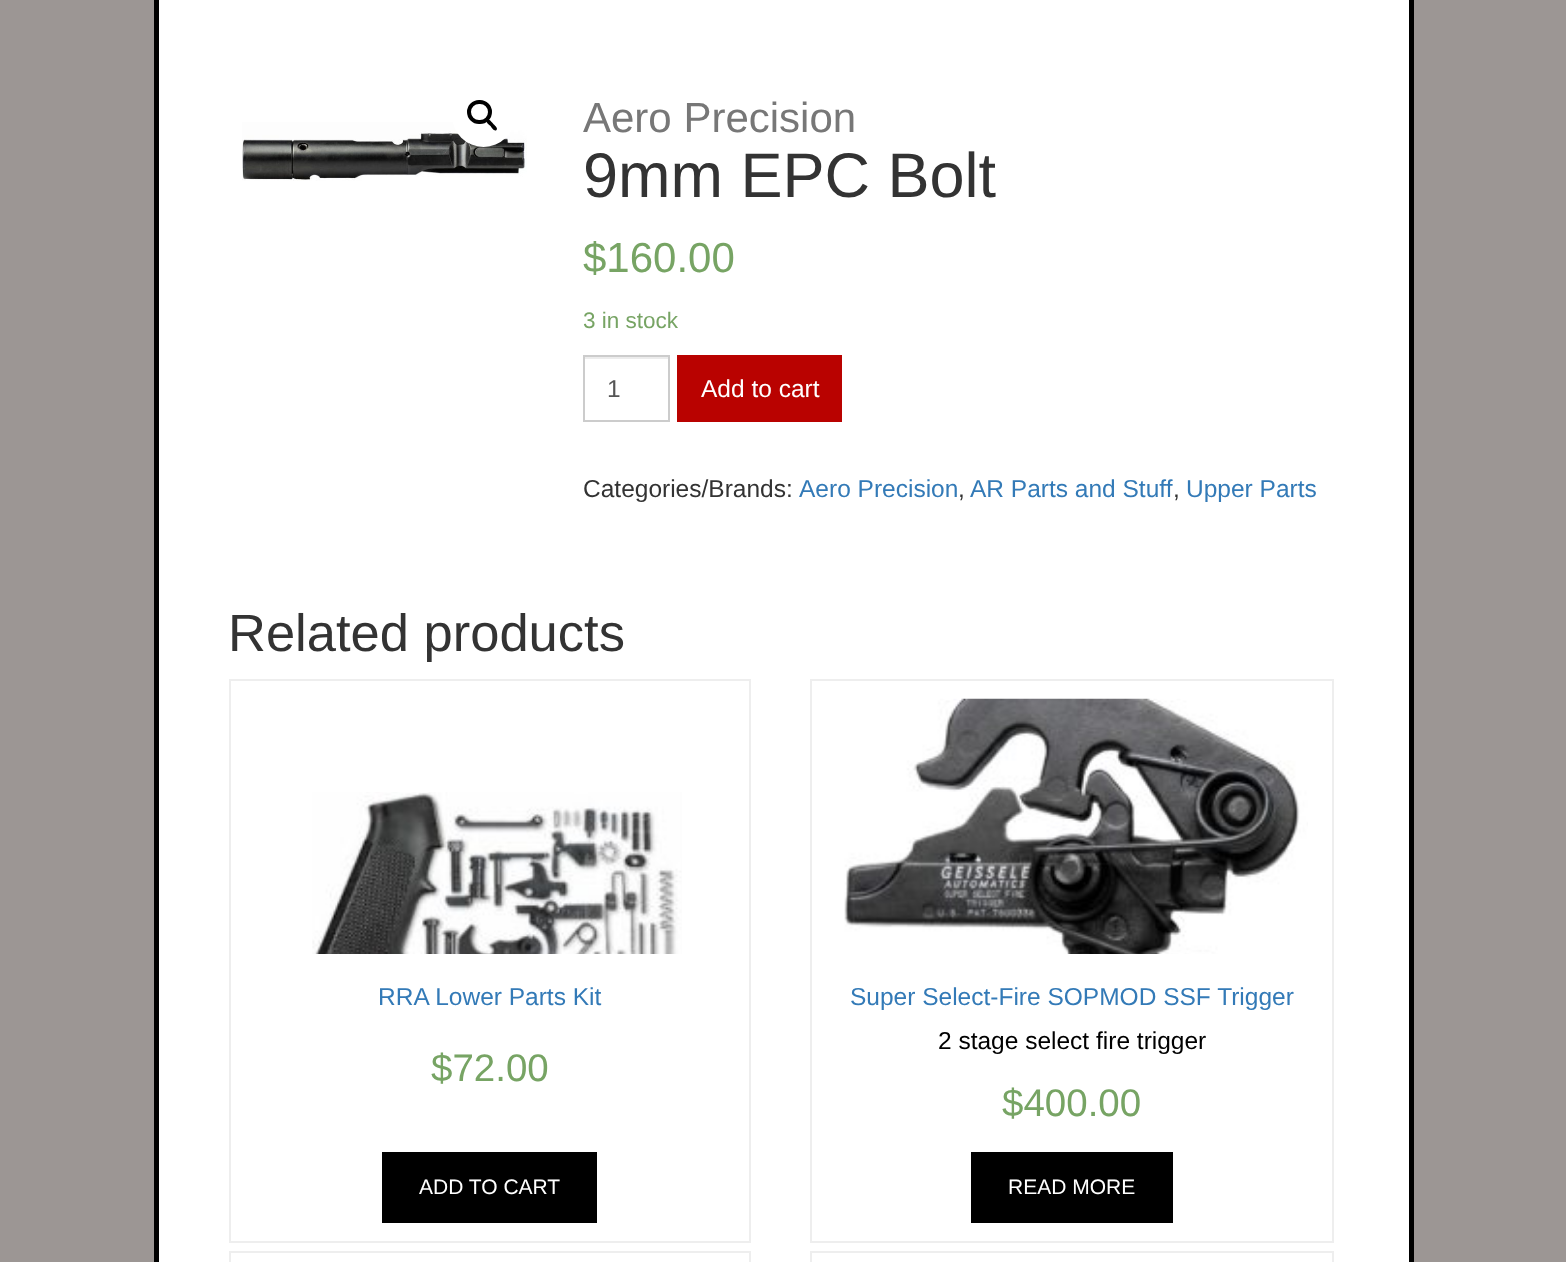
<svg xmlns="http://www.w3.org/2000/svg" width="1566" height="1262">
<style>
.a{font:42px Liberation Sans;fill:#777}
.b{font:63px Liberation Sans;fill:#333}
.c{font:42px Liberation Sans;fill:#77a464}
.d{font:22.5px Liberation Sans;fill:#77a464}
.e{font:24.5px Liberation Sans;fill:#555}
.f{font:24.5px Liberation Sans;fill:#fff}
.g{font:24.5px Liberation Sans;fill:#333}
.h{font:24.5px Liberation Sans;fill:#337ab7}
.i{font:52.5px Liberation Sans;fill:#333}
.j{font:38.5px Liberation Sans;fill:#77a464}
.k{font:21px Liberation Sans;fill:#fff}
.l{font:24.5px Liberation Sans;fill:#000}
</style>
<rect width="100%" height="100%" fill="#9c9694"/>
<path fill="#fff" stroke="#000" stroke-width="5" d="M156.5 -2.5h1255v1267H156.5z"/>
<image href="1.png" x="242" y="122" width="285" height="59"/>
<circle fill="#fff" cx="483.5" cy="115.5" r="31.5"/>
<rect fill="none" stroke="#000" stroke-width="4" x="469" y="102" width="21" height="20" rx="10"/>
<path fill="#000" d="M487 120c2-2 5 2.5 6 3.5c1 1.5 5.5 4.5 3.5 6.5c-2 2-5-2.5-6-4c-1-1-5.5-4-3.5-6z"/>
<path fill="#ececec" d="M585 357h84v2H585z"/>
<path fill="none" stroke="#ccc" stroke-width="2" d="M584 356h85v65H584z"/>
<path fill="#b90200" d="M677 355h165v67H677z"/>
<path fill="none" stroke="#eee" stroke-width="2" d="M230 680h520v562H230z"/>
<image href="2.png" x="312" y="792" width="370" height="162"/>
<path fill="#000" d="M382 1152h215v71H382z"/>
<path fill="none" stroke="#eee" stroke-width="2" d="M811 680h522v562H811z"/>
<image href="3.png" x="844" y="698" width="464" height="256"/>
<path fill="#000" d="M971 1152h202v71H971z"/>
<path fill="none" stroke="#eee" stroke-width="2" d="M230 1252h520v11H230z"/>
<path fill="none" stroke="#eee" stroke-width="2" d="M811 1252h522v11H811z"/>
<text class="a" x="583" y="132">Aero Precision</text>
<text class="b" x="583" y="197">9mm EPC Bolt</text>
<text class="c" x="583" y="272">$160.00</text>
<text class="d" x="583" y="328">3 in stock</text>
<text class="e" x="607" y="397">1</text>
<text class="f" x="701" y="397">Add to cart</text>
<text class="g" x="583" y="497">Categories/Brands:</text>
<text class="h" x="799" y="497">Aero Precision</text>
<text class="g" x="958" y="497">,</text>
<text class="h" x="970" y="497">AR Parts and Stuff</text>
<text class="g" x="1173" y="497">,</text>
<text class="h" x="1186" y="497">Upper Parts</text>
<text class="i" x="228" y="651">Related products</text>
<text class="h" x="378" y="1005">RRA Lower Parts Kit</text>
<text class="j" x="431" y="1081">$72.00</text>
<text class="k" x="419" y="1194">ADD TO CART</text>
<text class="h" x="850" y="1005">Super Select-Fire SOPMOD SSF Trigger</text>
<text class="l" x="938" y="1049">2 stage select fire trigger</text>
<text class="j" x="1002" y="1116">$400.00</text>
<text class="k" x="1008" y="1194">READ MORE</text>
</svg>
